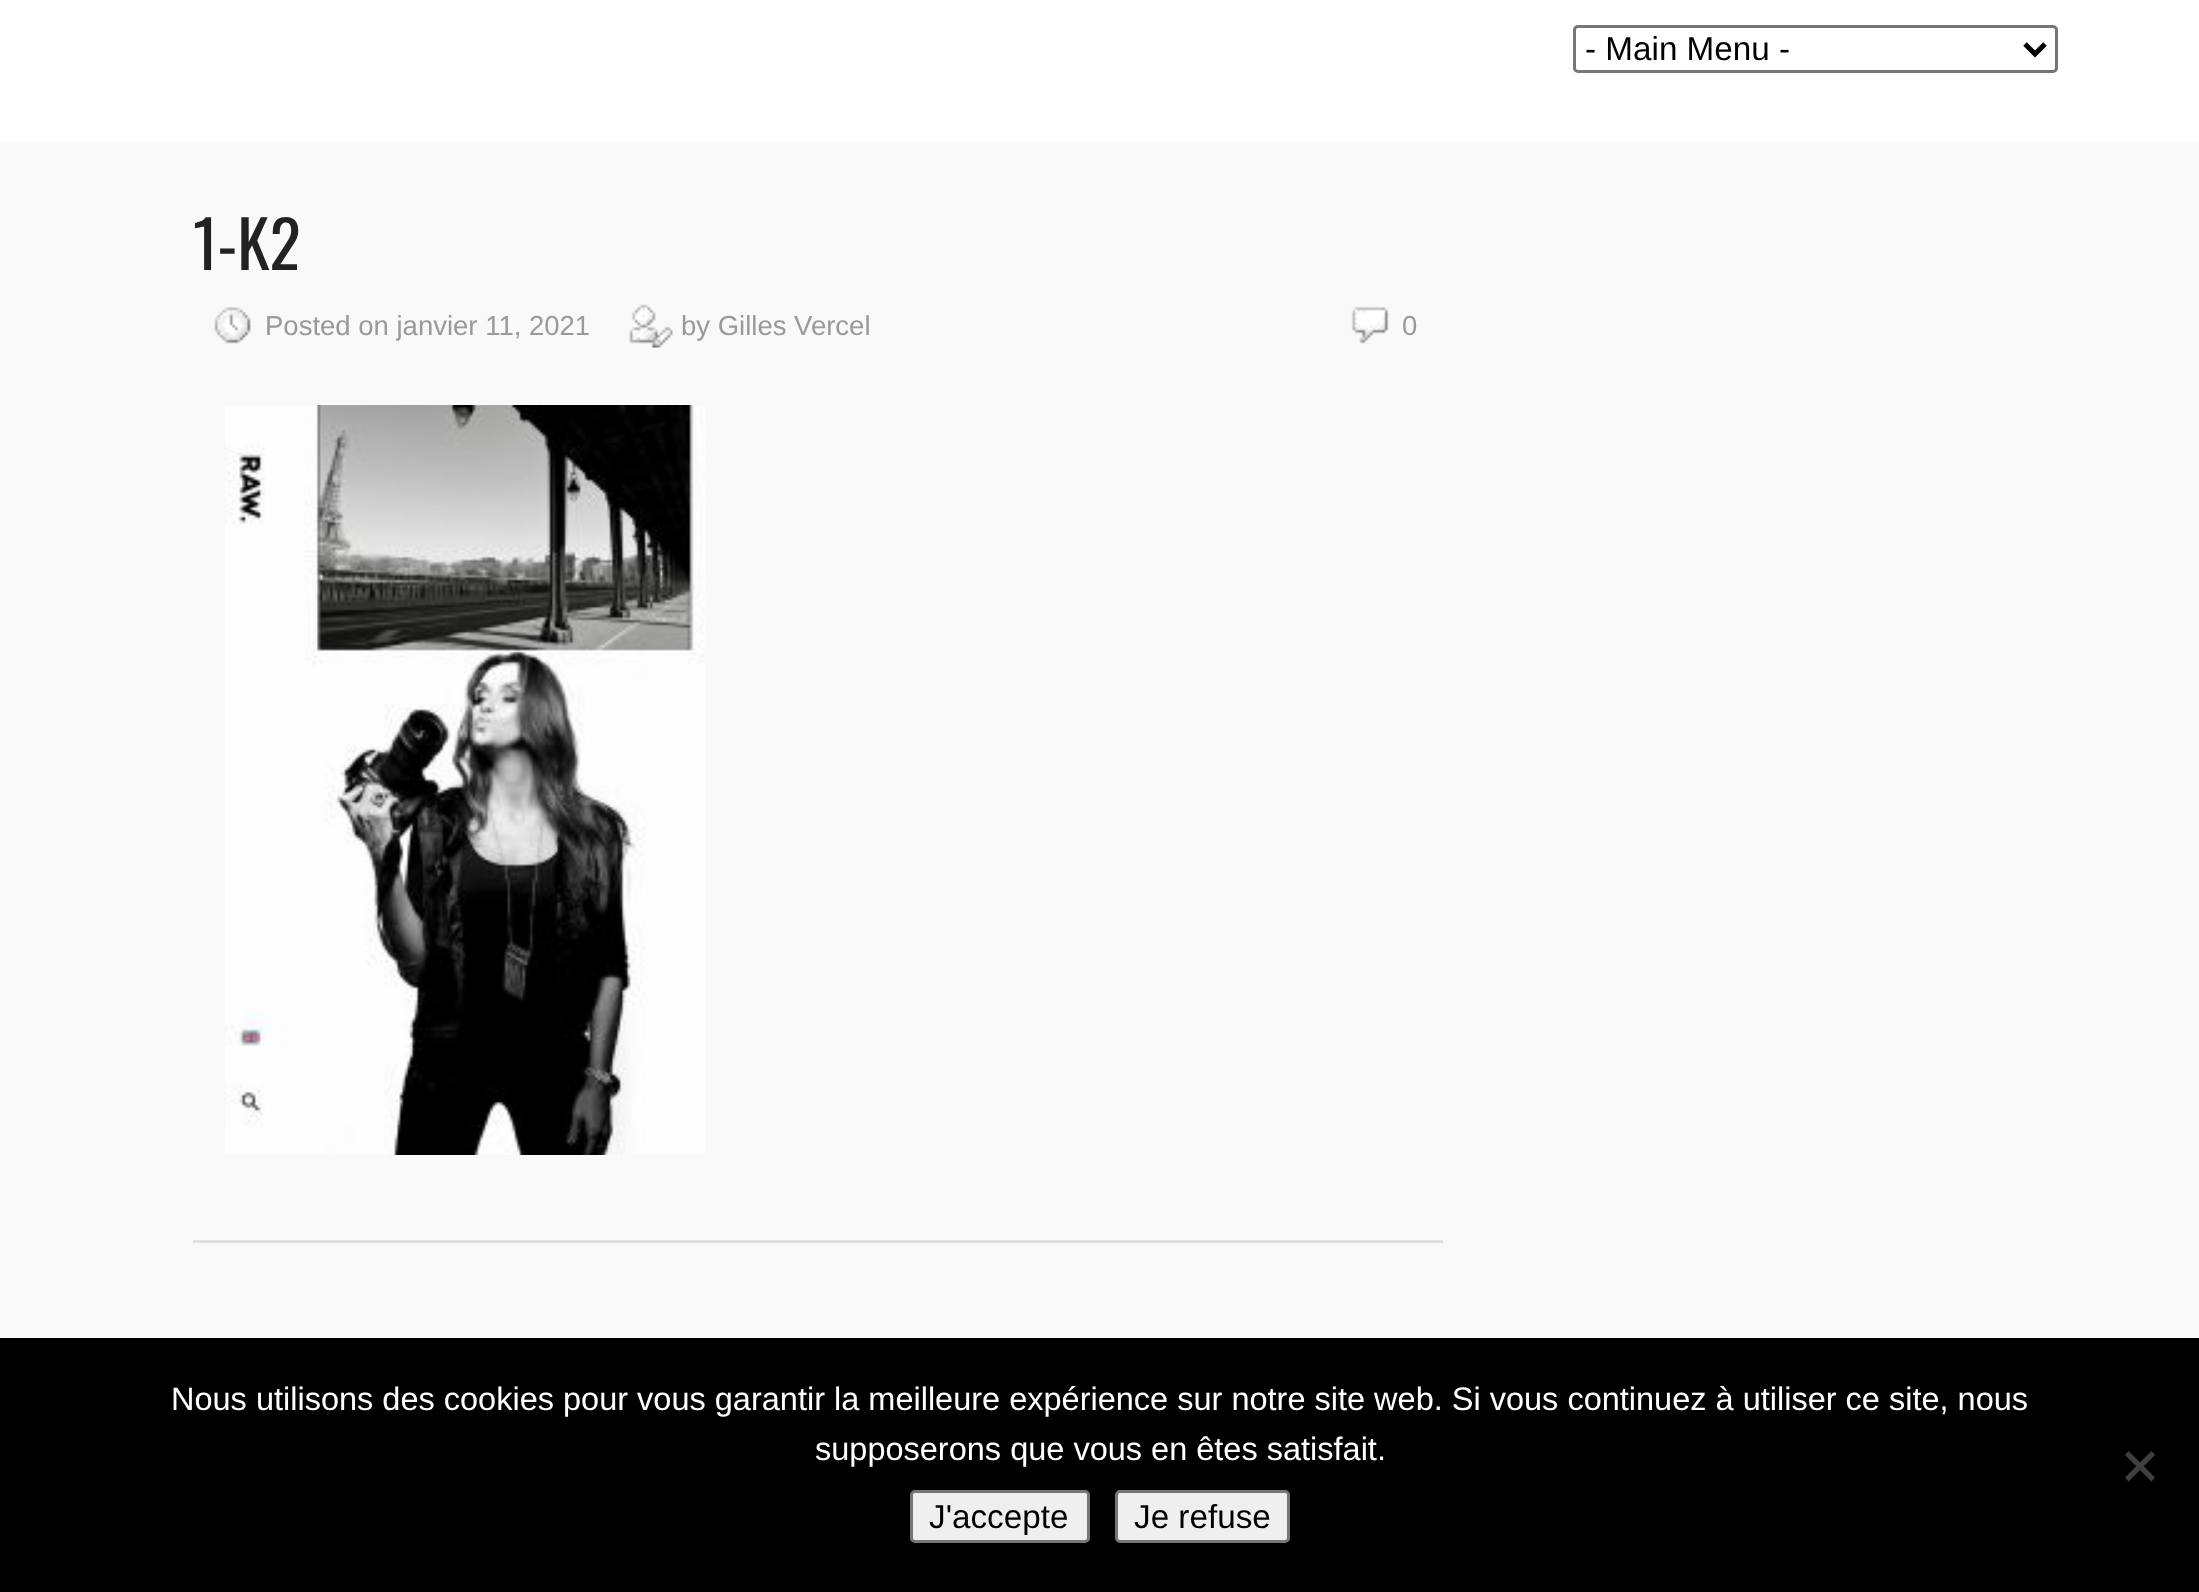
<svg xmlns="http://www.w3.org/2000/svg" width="2199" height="1592">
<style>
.a{font:33.25px Liberation Sans;fill:#000}
.b{font:65px Oswald;fill:#222}
.c{font:27.5px Liberation Sans;fill:#999}
.d{font:32.5px Liberation Sans;fill:#fff}
</style>
<rect width="100%" height="100%" fill="#fff"/>
<rect fill="none" stroke="#767676" stroke-width="3" x="1574.5" y="26.5" width="482" height="45" rx="3.5"/>
<path fill="none" stroke="#000" stroke-width="5" d="M2025 44l10 10l10-10"/>
<path fill="#f9f9f9" d="M0 143h2199v1195H0z"/>
<path fill="#e0e0e0" d="M193 1240h1250v3H193z"/>
<image href="1.png" x="214" y="307" width="37" height="37"/>
<image href="2.png" x="629" y="304" width="44" height="44"/>
<image href="3.png" x="1351" y="306" width="38" height="38"/>
<image href="4.png" x="225" y="405" width="480" height="750"/>
<path fill="#000" d="M0 1338h2199v254H0z"/>
<path fill="#404040" d="M2151.5 1451l3.5 4l-26.5 26.5l-3.5-4z"/>
<path fill="#404040" d="M2125 1455l3.5-4l26.5 26.5l-3.5 4z"/>
<rect fill="#efefef" stroke="#767676" stroke-width="3" x="911.5" y="1491.5" width="177" height="50" rx="3.5"/>
<rect fill="#efefef" stroke="#767676" stroke-width="3" x="1116.5" y="1491.5" width="172" height="50" rx="3.5"/>
<text class="a" x="1585" y="60">- Main Menu -</text>
<text class="b" x="193" y="270">1-K2</text>
<text class="c" x="265" y="335">Posted on janvier 11, 2021</text>
<text class="c" x="681" y="335">by Gilles Vercel</text>
<text class="c" x="1402" y="335">0</text>
<text class="d" x="171" y="1410">Nous utilisons des cookies pour vous garantir la meilleure expérience sur notre site web. Si vous continuez à utiliser ce site, nous</text>
<text class="d" x="815" y="1460">supposerons que vous en êtes satisfait.</text>
<text class="a" x="929" y="1528">J'accepte</text>
<text class="a" x="1134" y="1528">Je refuse</text>
</svg>
